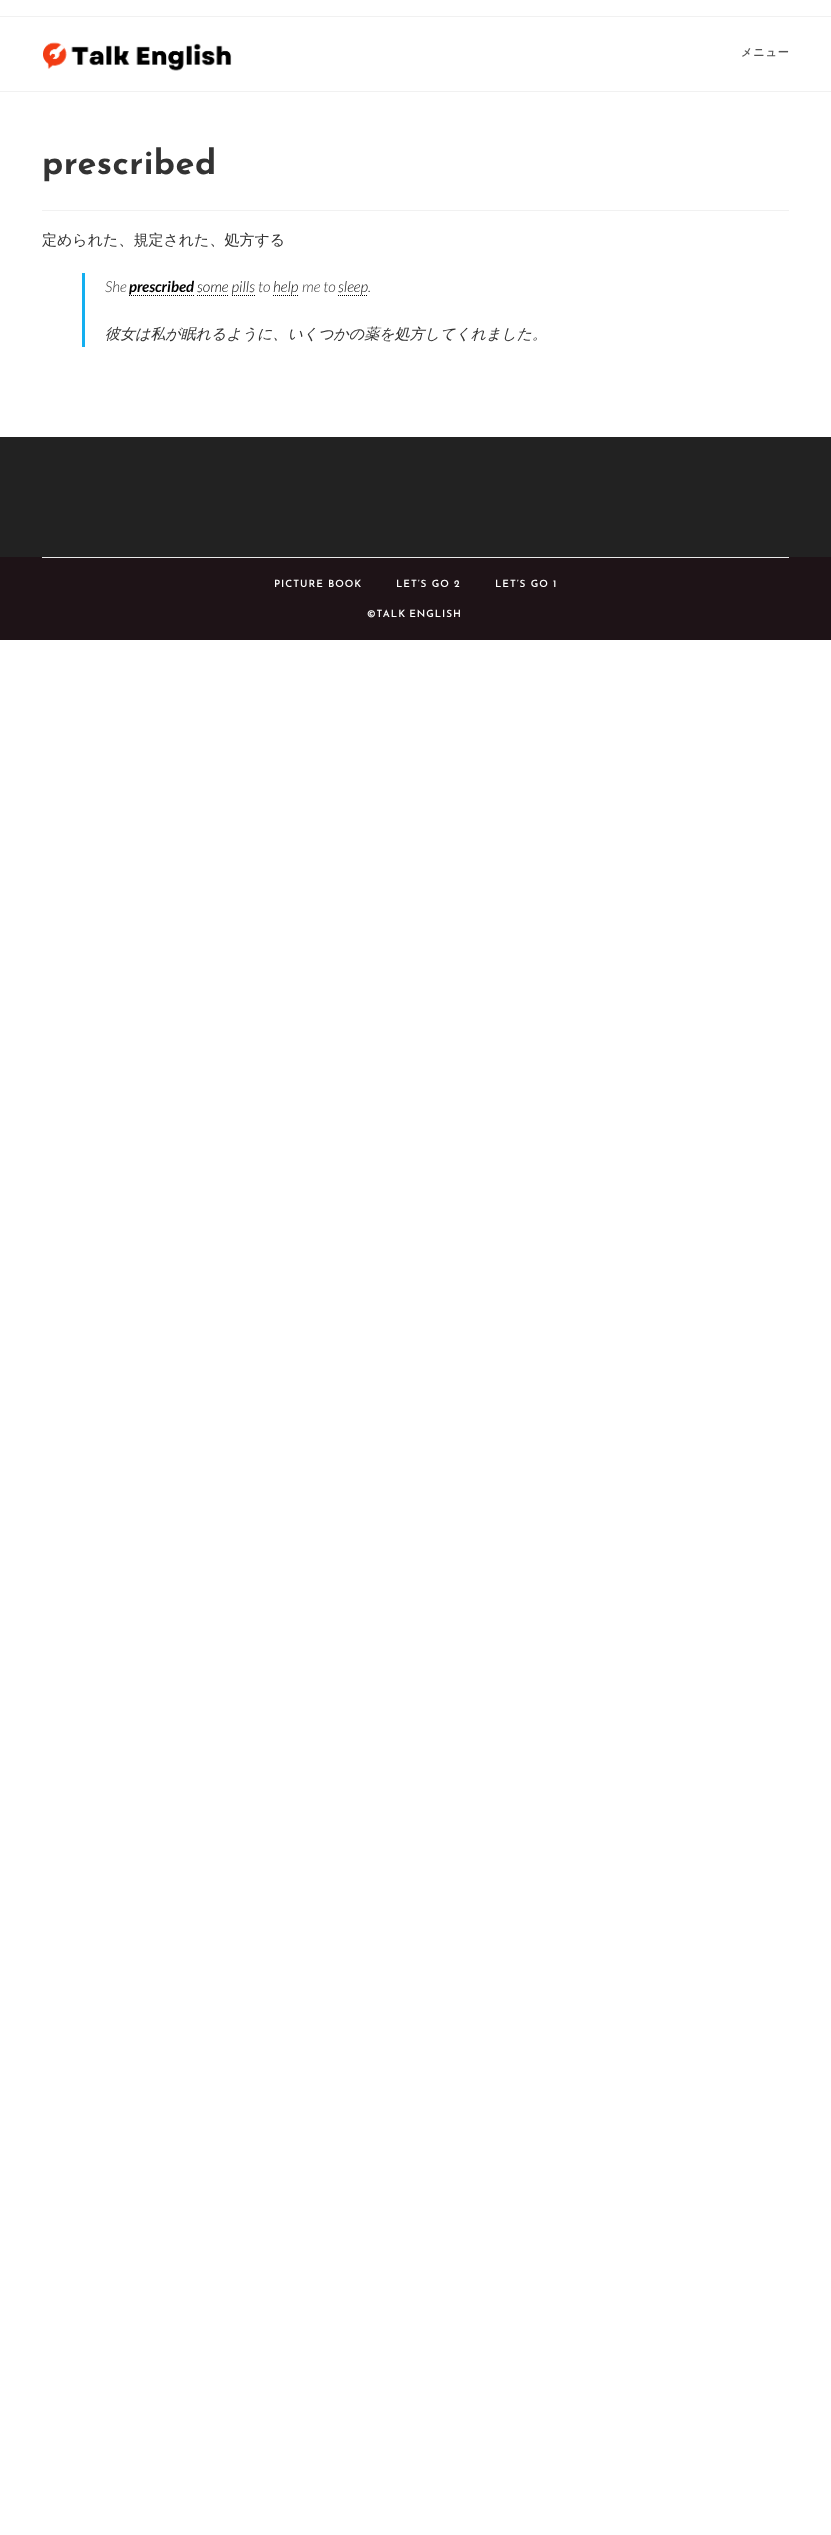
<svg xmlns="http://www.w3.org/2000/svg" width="831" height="2535">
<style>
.a{font:bold 11px WenQuanYi Zen Hei;letter-spacing:1px;fill:#555}
.b{font:bold 34px Josefin Sans;letter-spacing:0.5px;fill:#333}
.c{font:500 15px WenQuanYi Zen Hei;fill:#333}
.d{font:italic 300 15px Lato;fill:#333}
.e{font:italic bold 15px Lato;fill:#000}
.f{font:italic 300 15px Lato;fill:#000}
.g{font:italic 500 15px WenQuanYi Zen Hei;fill:#333}
.h{font:600 10px Josefin Sans;letter-spacing:1px;fill:#fff}
</style>
<rect width="100%" height="100%" fill="#fff"/>
<path fill="#f1f1f1" d="M0 16h831v1H0z"/>
<path fill="#f1f1f1" d="M0 91h831v1H0z"/>
<image href="1.png" x="43" y="42" width="189" height="29"/>
<path fill="#f1f1f1" d="M42 210h747v1H42z"/>
<path fill="#13aff0" d="M82 273h3v74H82z"/>
<path fill="none" stroke="#000" stroke-dasharray="1 1" d="M129 295.5h65"/>
<path fill="none" stroke="#000" stroke-dasharray="1 1" d="M197 295.5h32"/>
<path fill="none" stroke="#000" stroke-dasharray="1 1" d="M273 295.5h26"/>
<path fill="none" stroke="#000" stroke-dasharray="1 1" d="M338 295.5h30"/>
<path fill="none" stroke="#000" stroke-dasharray="1 1" d="M232 295.5h23"/>
<path fill="#222" d="M0 437h831v120H0z"/>
<path fill="#1e1317" d="M0 557h831v83H0z"/>
<path fill="#eaeaea" d="M42 557h747v1H42z"/>
<text class="a" x="741" y="56">メニュー</text>
<text class="b" x="42" y="174">prescribed</text>
<text class="c" x="42" y="245">定められた、規定された、処方する</text>
<text class="d" x="105" y="292">She</text>
<text class="e" x="129" y="292">prescribed</text>
<text class="f" x="197" y="292">some pills</text>
<text class="d" x="258" y="292">to</text>
<text class="f" x="273" y="292">help</text>
<text class="d" x="302" y="292">me to</text>
<text class="f" x="338" y="292">sleep</text>
<text class="d" x="368" y="292">.</text>
<text class="g" x="105" y="339">彼女は私が眠れるように、いくつかの薬を処方してくれました。</text>
<text class="h" x="274" y="587">PICTURE BOOK</text>
<text class="h" x="396" y="587">LET’S GO 2</text>
<text class="h" x="495" y="587">LET’S GO 1</text>
<text class="h" x="367" y="617" word-spacing="-1">©︎TALK ENGLISH</text>
</svg>
